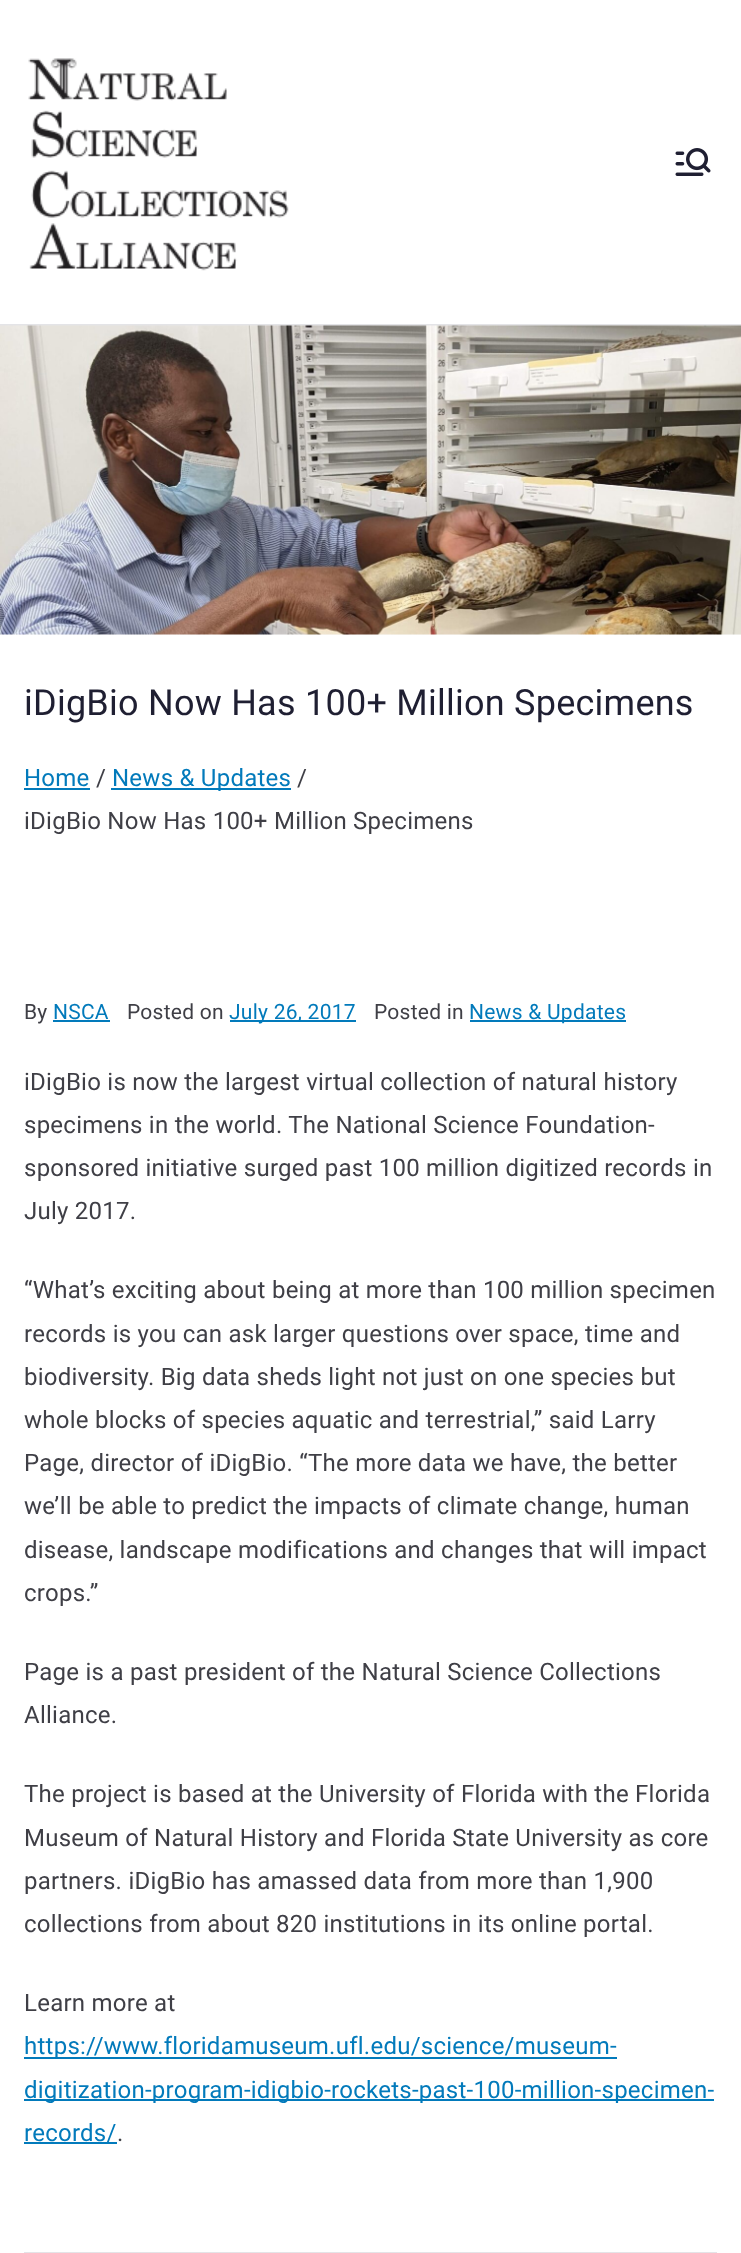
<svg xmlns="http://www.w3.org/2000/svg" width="741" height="2253">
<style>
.a{font:36px Roboto;letter-spacing:0.25px;fill:#1f1f32}
.b{font:24px Roboto;letter-spacing:0.25px;fill:#027abb}
.c{font:24px Roboto;letter-spacing:0.25px;fill:#3f3f46}
.d{font:21px Roboto;letter-spacing:0.25px;fill:#3f3f46}
.e{font:21px Roboto;letter-spacing:0.25px;fill:#027abb}
</style>
<rect width="100%" height="100%" fill="#fafafa"/>
<path fill="#e4e4e7" d="M0 324h741v2H0z"/>
<path fill="#fff" d="M0 0h741v324H0z"/>
<image href="1.png" x="28" y="58" width="261" height="213"/>
<image href="2.png" x="675" y="148" width="36" height="28"/>
<image href="3.png" x="0" y="325" width="741" height="310"/>
<path fill="#fff" d="M0 635h741v1618H0z"/>
<path fill="#027abb" d="M24 788h66v2H24z"/>
<path fill="#027abb" d="M111 788h180v2H111z"/>
<path fill="#027abb" d="M53 1020h57v2H53z"/>
<path fill="#027abb" d="M230 1020h126v2H230z"/>
<path fill="#027abb" d="M470 1020h156v2H470z"/>
<path fill="#027abb" d="M24 2057h593v2H24z"/>
<path fill="#027abb" d="M24 2099h690v2H24z"/>
<path fill="#027abb" d="M24 2142h93v2H24z"/>
<path fill="#e4e4e7" d="M24 2252h693v1H24z"/>
<text class="a" x="24" y="715">iDigBio Now Has 100+ Million Specimens</text>
<text class="b" x="24" y="786">Home</text>
<text class="c" x="96" y="786">/</text>
<text class="b" x="112" y="786">News &amp; Updates</text>
<text class="c" x="297" y="786">/</text>
<text class="c" x="24" y="829">iDigBio Now Has 100+ Million Specimens</text>
<text class="d" x="24" y="1019">By</text>
<text class="e" x="53" y="1019">NSCA</text>
<text class="d" x="127" y="1019">Posted on</text>
<text class="e" x="229" y="1019">July 26, 2017</text>
<text class="d" x="374" y="1019">Posted in</text>
<text class="e" x="469" y="1019">News &amp; Updates</text>
<text class="c" x="24" y="1090">iDigBio is now the largest virtual collection of natural history</text>
<text class="c" x="24" y="1133">specimens in the world. The National Science Foundation-</text>
<text class="c" x="24" y="1176">sponsored initiative surged past 100 million digitized records in</text>
<text class="c" x="24" y="1219">July 2017.</text>
<text class="c" x="24" y="1298">“What’s exciting about being at more than 100 million specimen</text>
<text class="c" x="24" y="1342">records is you can ask larger questions over space, time and</text>
<text class="c" x="24" y="1385">biodiversity. Big data sheds light not just on one species but</text>
<text class="c" x="24" y="1428">whole blocks of species aquatic and terrestrial,” said Larry</text>
<text class="c" x="24" y="1471">Page, director of iDigBio. “The more data we have, the better</text>
<text class="c" x="24" y="1514">we’ll be able to predict the impacts of climate change, human</text>
<text class="c" x="24" y="1558">disease, landscape modifications and changes that will impact</text>
<text class="c" x="24" y="1601">crops.”</text>
<text class="c" x="24" y="1680">Page is a past president of the Natural Science Collections</text>
<text class="c" x="24" y="1723">Alliance.</text>
<text class="c" x="24" y="1802">The project is based at the University of Florida with the Florida</text>
<text class="c" x="24" y="1846">Museum of Natural History and Florida State University as core</text>
<text class="c" x="24" y="1889">partners. iDigBio has amassed data from more than 1,900</text>
<text class="c" x="24" y="1932">collections from about 820 institutions in its online portal.</text>
<text class="c" x="24" y="2011">Learn more at</text>
<text class="b" x="24" y="2054">https://www.floridamuseum.ufl.edu/science/museum-</text>
<text class="b" x="24" y="2098">digitization-program-idigbio-rockets-past-100-million-specimen-</text>
<text class="b" x="24" y="2141">records/</text>
<text class="c" x="117" y="2141">.</text>
</svg>
